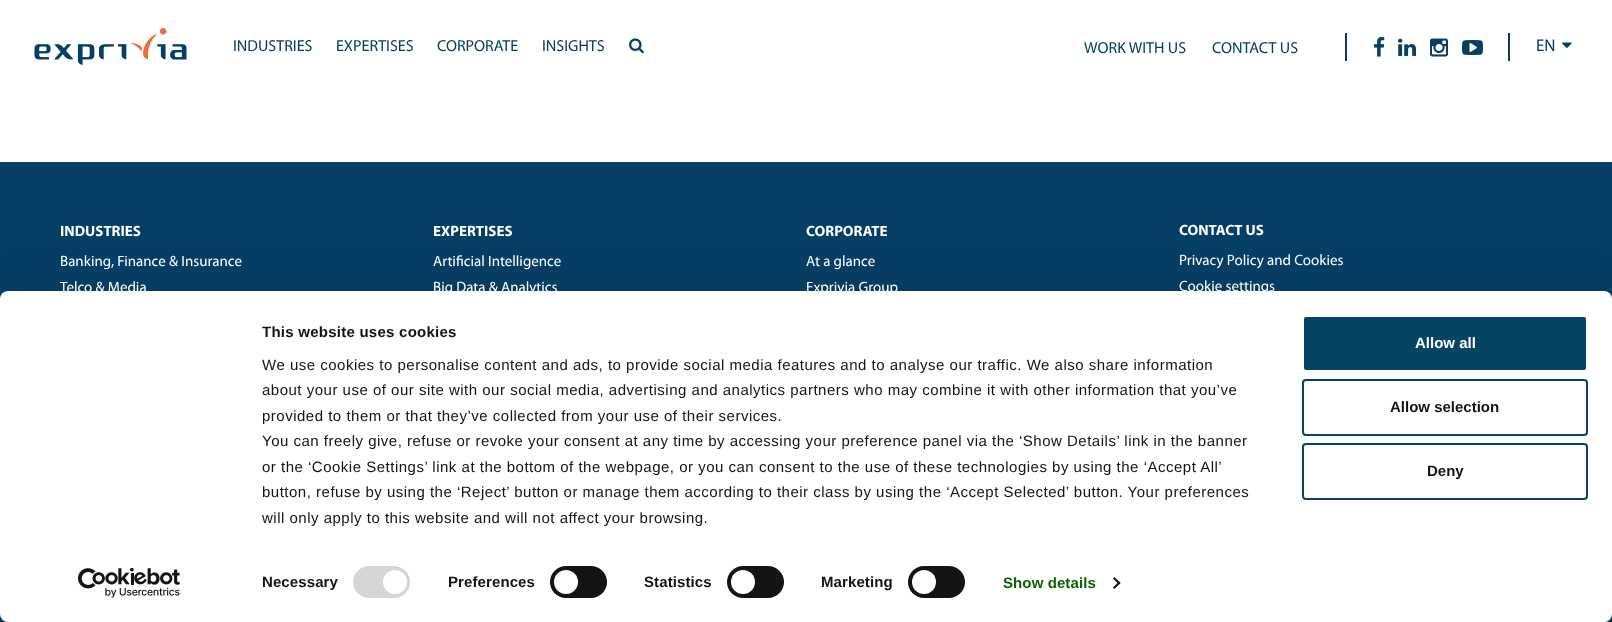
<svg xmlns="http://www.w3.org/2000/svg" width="1612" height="622">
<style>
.a{font:16px Myriad;fill:#063f66}
.b{font:17px Myriad;fill:#063f66}
.c{font:bold 15px Myriad;fill:#fff}
.d{font:15px Myriad;fill:#fff}
.e{font:bold 15px Liberation Sans;letter-spacing:0.25px;fill:#141414}
.f{font:15px Liberation Sans;letter-spacing:0.5px;fill:#141414}
.g{font:bold 15px Liberation Sans;letter-spacing:0.1px;fill:#141414}
.h{font:bold 15px Liberation Sans;letter-spacing:0.1px;fill:#066303}
.i{font:bold 15px Liberation Sans;fill:#fff}
.j{font:bold 15px Liberation Sans;fill:#141414}
</style>
<rect width="100%" height="100%" fill="#fff"/>
<image href="1.png" x="34" y="28" width="153" height="37"/>
<image href="2.png" x="629" y="38" width="15" height="16"/>
<path fill="#063f66" d="M1508 33h2v28H1508z"/>
<path fill="#063f66" d="M1345 33h2v28H1345z"/>
<image href="3.png" x="1374" y="37" width="11" height="20"/>
<image href="4.png" x="1398" y="38" width="18" height="18"/>
<image href="5.png" x="1430" y="38" width="18" height="19"/>
<image href="6.png" x="1462" y="40" width="21" height="15"/>
<image href="7.png" x="1562" y="42" width="10" height="6"/>
<path fill="#063f66" d="M0 162h1612v460H0z"/>
<rect fill="#0000004d" filter="blur(35px)" y="321" width="1612" height="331" rx="8"/>
<rect fill="#fff" y="291" width="1612" height="331" rx="8"/>
<rect fill="#d6d6d6" x="353" y="566" width="57" height="32" rx="16"/>
<circle fill="#fff" cx="395" cy="582" r="12"/>
<rect fill="#141414" x="550" y="566" width="57" height="32" rx="16"/>
<circle fill="#fff" cx="566" cy="582" r="12"/>
<rect fill="#141414" x="727" y="566" width="57" height="32" rx="16"/>
<circle fill="#fff" cx="743" cy="582" r="12"/>
<rect fill="#141414" x="908" y="566" width="57" height="32" rx="16"/>
<circle fill="#fff" cx="924" cy="582" r="12"/>
<path fill="#141414" d="M1114.5 577l6 6l-1.5 1.5l-6-6z"/>
<path fill="#141414" d="M1119 581.5l1.5 1.5l-6 6l-1.5-1.5z"/>
<rect fill="#034563" stroke="#fff" stroke-width="2" x="1303" y="316" width="284" height="55" rx="3"/>
<rect fill="none" stroke="#034563" stroke-width="2" x="1303" y="380" width="284" height="55" rx="3"/>
<rect fill="none" stroke="#034563" stroke-width="2" x="1303" y="444" width="284" height="55" rx="3"/>
<image href="8.png" x="78" y="568" width="102" height="30"/>
<text class="a" x="233" y="51">INDUSTRIES</text>
<text class="a" x="336" y="51">EXPERTISES</text>
<text class="a" x="437" y="51">CORPORATE</text>
<text class="a" x="542" y="51">INSIGHTS</text>
<text class="a" x="1084" y="53">WORK WITH US</text>
<text class="a" x="1212" y="53">CONTACT US</text>
<text class="b" x="1536" y="51">EN</text>
<text class="c" x="60" y="236">INDUSTRIES</text>
<text class="d" x="60" y="266">Banking, Finance &amp; Insurance</text>
<text class="d" x="60" y="292">Telco &amp; Media</text>
<text class="c" x="433" y="236">EXPERTISES</text>
<text class="d" x="433" y="266">Artificial Intelligence</text>
<text class="d" x="433" y="292">Big Data &amp; Analytics</text>
<text class="c" x="806" y="236">CORPORATE</text>
<text class="d" x="806" y="266">At a glance</text>
<text class="d" x="806" y="292">Exprivia Group</text>
<text class="c" x="1179" y="235">CONTACT US</text>
<text class="d" x="1179" y="265">Privacy Policy and Cookies</text>
<text class="d" x="1179" y="291">Cookie settings</text>
<text class="e" x="262" y="337">This website uses cookies</text>
<text class="f" x="262" y="370">We use cookies to personalise content and ads, to provide social media features and to analyse our traffic. We also share information</text>
<text class="f" x="262" y="395">about your use of our site with our social media, advertising and analytics partners who may combine it with other information that you’ve</text>
<text class="f" x="262" y="421">provided to them or that they’ve collected from your use of their services.</text>
<text class="f" x="262" y="446">You can freely give, refuse or revoke your consent at any time by accessing your preference panel via the ‘Show Details’ link in the banner</text>
<text class="f" x="262" y="472">or the ‘Cookie Settings’ link at the bottom of the webpage, or you can consent to the use of these technologies by using the ‘Accept All’</text>
<text class="f" x="262" y="497">button, refuse by using the ‘Reject’ button or manage them according to their class by using the ‘Accept Selected’ button. Your preferences</text>
<text class="f" x="262" y="523">will only apply to this website and will not affect your browsing.</text>
<text class="g" x="262" y="587">Necessary</text>
<text class="g" x="448" y="587">Preferences</text>
<text class="g" x="644" y="587">Statistics</text>
<text class="g" x="821" y="587">Marketing</text>
<text class="h" x="1003" y="588">Show details</text>
<text class="i" x="1415" y="348">Allow all</text>
<text class="j" x="1390" y="412">Allow selection</text>
<text class="j" x="1427" y="476">Deny</text>
</svg>
